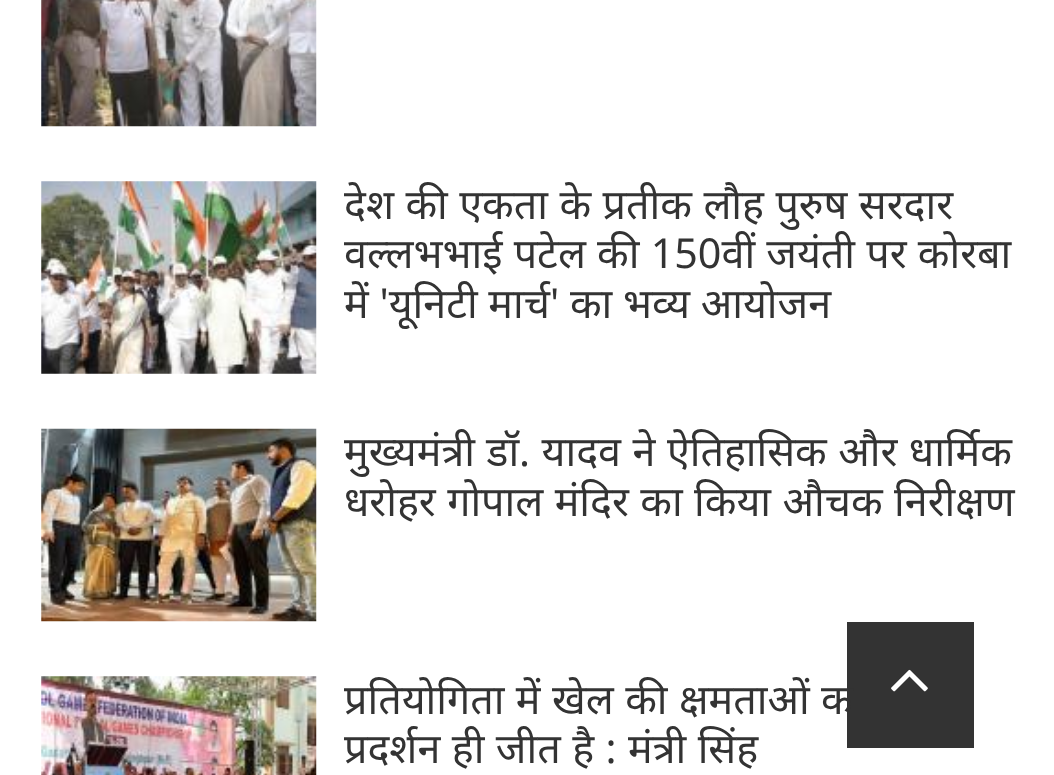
<svg xmlns="http://www.w3.org/2000/svg" width="1054" height="775">
<style>
.a{font:41.25px Noto Sans;fill:#333}
</style>
<rect width="100%" height="100%" fill="#fff"/>
<image href="1.png" x="41" y="0" width="276" height="127"/>
<image href="2.png" x="41" y="181" width="276" height="193"/>
<image href="3.png" x="41" y="428" width="276" height="194"/>
<image href="4.png" x="41" y="676" width="276" height="99"/>
<path fill="#333" d="M847 622h127v126H847z"/>
<image href="5.png" x="891" y="669" width="37" height="23"/>
<text class="a" x="344" y="219" word-spacing="0.75">देश की एकता के प्रतीक लौह पुरुष सरदार</text>
<text class="a" x="344" y="268" word-spacing="0.5">वल्लभभाई पटेल की 150वीं जयंती पर कोरबा</text>
<text class="a" x="344" y="318">में 'यूनिटी मार्च' का भव्य आयोजन</text>
<text class="a" x="344" y="466" word-spacing="0.75">मुख्यमंत्री डॉ. यादव ने ऐतिहासिक और धार्मिक</text>
<text class="a" x="344" y="516" word-spacing="0.75">धरोहर गोपाल मंदिर का किया औचक निरीक्षण</text>
<text class="a" x="344" y="714" word-spacing="0.75">प्रतियोगिता में खेल की क्षमताओं क</text>
<text class="a" x="344" y="763" word-spacing="0.75">प्रदर्शन ही जीत है : मंत्री सिंह</text>
</svg>
